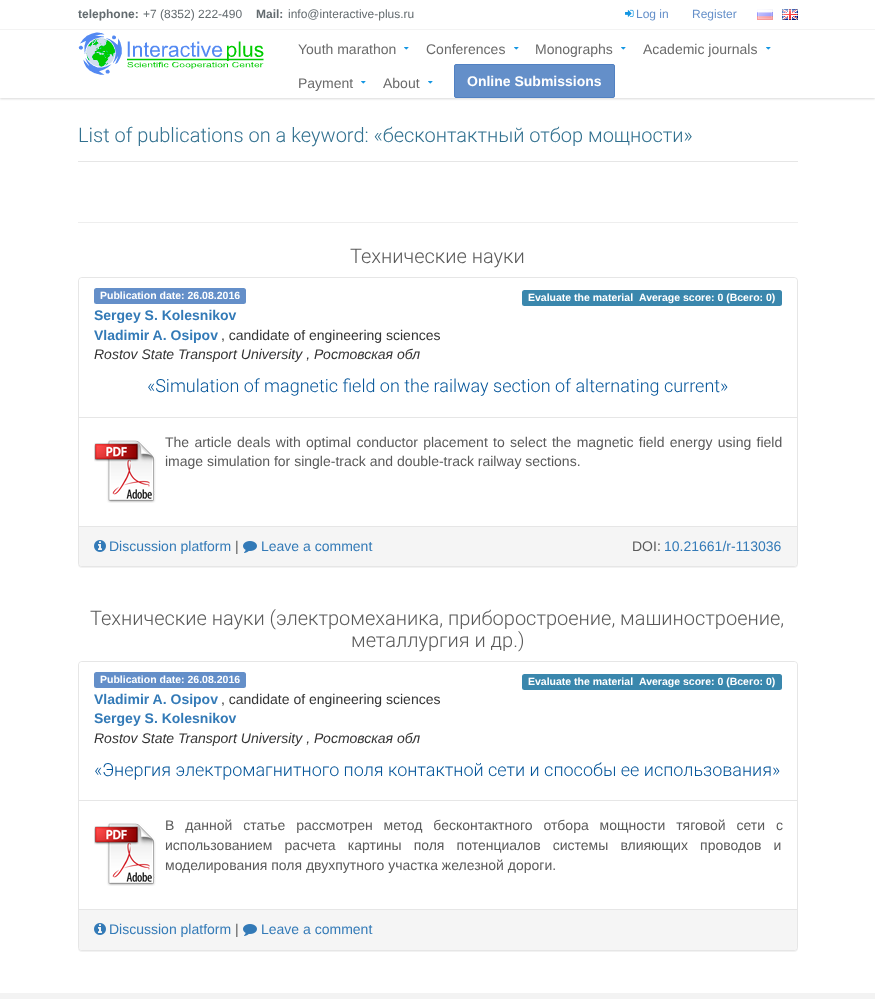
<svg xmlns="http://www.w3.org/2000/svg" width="875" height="999">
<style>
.a{font:bold 12px Liberation Sans;fill:#636b6f}
.b{font:12px Liberation Sans;fill:#636b6f}
.c{font:12px Liberation Sans;fill:#648fc9}
.d{font:14px Liberation Sans;fill:#6a6a6a}
.e{font:bold 14px Liberation Sans;fill:#fff}
.f{font:300 20px Roboto;fill:#31708f}
.g{font:300 20px Roboto;fill:#5a5a5a}
.h{font:bold 10.5px Liberation Sans;fill:#fff}
.i{font:bold 14px Liberation Sans;fill:#337ab7}
.j{font:14px Liberation Sans;fill:#333}
.k{font:italic 14px Liberation Sans;fill:#333}
.l{font:300 18px Roboto;fill:#035499}
.m{font:14px Liberation Sans;fill:#5a5a5a}
.n{font:14px Liberation Sans;fill:#337ab7}
</style>
<rect width="100%" height="100%" fill="#fff"/>
<path fill="#00000026" filter="blur(1px)" d="M0 1h875v98H0z"/>
<path fill="#fff" d="M0 0h875v98H0z"/>
<path fill="#f3f3f3" d="M0 29h875v1H0z"/>
<image href="1.png" x="625" y="9" width="9" height="8"/>
<image href="2.png" x="757" y="9" width="16" height="11"/>
<image href="3.png" x="782" y="9" width="16" height="11"/>
<image href="4.png" x="78" y="32" width="186" height="43"/>
<image href="5.png" x="404" y="47" width="5" height="3"/>
<image href="5.png" x="514" y="47" width="5" height="3"/>
<image href="5.png" x="621" y="47" width="5" height="3"/>
<image href="5.png" x="766" y="47" width="5" height="3"/>
<image href="5.png" x="361" y="81" width="5" height="3"/>
<image href="5.png" x="428" y="81" width="5" height="3"/>
<rect fill="#648fc9" stroke="#5181c2" x="454.5" y="64.5" width="160" height="33" rx="1.5"/>
<path fill="#e6e6e6" d="M78 161h720v1H78z"/>
<path fill="#eee" d="M78 222h720v1H78z"/>
<rect fill="#0000000d" filter="blur(0.5px)" x="78" y="278" width="720" height="290" rx="4"/>
<rect fill="#fff" stroke="#e6e6e6" x="78.5" y="277.5" width="719" height="289" rx="3.5"/>
<path fill="#fff" d="M82 278h712c1.5 0 3 1.5 3 3v137h-718v-137c0-1.5 1.5-3 3-3z"/>
<path fill="#e6e6e6" d="M79 417h718v1H79z"/>
<rect fill="#648fc9" x="94" y="288" width="152" height="16" rx="2.5"/>
<rect fill="#3a87ad" x="522" y="290" width="260" height="16" rx="2.5"/>
<image href="6.png" x="94" y="440" width="62" height="63"/>
<path fill="#f5f5f5" d="M79 526h718v37c0 1.5-1.5 3-3 3h-712c-1.5 0-3-1.5-3-3z"/>
<path fill="#e6e6e6" d="M79 526h718v1H79z"/>
<image href="7.png" x="94" y="540" width="12" height="12"/>
<image href="8.png" x="243" y="541" width="14" height="12"/>
<rect fill="#0000000d" filter="blur(0.5px)" x="78" y="662" width="720" height="290" rx="4"/>
<rect fill="#fff" stroke="#e6e6e6" x="78.5" y="661.5" width="719" height="289" rx="3.5"/>
<path fill="#fff" d="M82 662h712c1.5 0 3 1.5 3 3v136h-718v-136c0-1.5 1.5-3 3-3z"/>
<path fill="#e6e6e6" d="M79 800h718v1H79z"/>
<rect fill="#648fc9" x="94" y="672" width="152" height="16" rx="2.5"/>
<rect fill="#3a87ad" x="522" y="674" width="260" height="16" rx="2.5"/>
<image href="6.png" x="94" y="823" width="62" height="63"/>
<path fill="#f5f5f5" d="M79 909h718v38c0 1.5-1.5 3-3 3h-712c-1.5 0-3-1.5-3-3z"/>
<path fill="#e6e6e6" d="M79 909h718v1H79z"/>
<image href="7.png" x="94" y="923" width="12" height="12"/>
<image href="8.png" x="243" y="924" width="14" height="12"/>
<path fill="#f3f3f3" d="M0 993h875v6H0z"/>
<text class="a" x="78" y="18">telephone:</text>
<text class="b" x="143" y="18">+7 (8352) 222-490</text>
<text class="a" x="256" y="18">Mail:</text>
<text class="b" x="288" y="18">info@interactive-plus.ru</text>
<text class="c" x="636" y="18">Log in</text>
<text class="c" x="692" y="18">Register</text>
<text class="d" x="298" y="54">Youth marathon</text>
<text class="d" x="426" y="54">Conferences</text>
<text class="d" x="535" y="54">Monographs</text>
<text class="d" x="643" y="54">Academic journals</text>
<text class="d" x="298" y="88">Payment</text>
<text class="d" x="383" y="88">About</text>
<text class="e" x="467" y="86">Online Submissions</text>
<text class="f" x="78" y="142">List of publications on a keyword: «бесконтактный отбор мощности»</text>
<text class="g" x="350" y="263">Технические науки</text>
<text class="h" x="100" y="299">Publication date: 26.08.2016</text>
<text class="h" x="528" y="301">Evaluate the material</text>
<text class="h" x="639" y="301">Average score: 0 (Всего: 0)</text>
<text class="i" x="94" y="320">Sergey S. Kolesnikov</text>
<text class="i" x="94" y="340">Vladimir A. Osipov</text>
<text class="j" x="221" y="340">, candidate of engineering sciences</text>
<text class="k" x="94" y="359">Rostov State Transport University , Ростовская обл</text>
<text class="l" x="147" y="392">«Simulation of magnetic field on the railway section of alternating current»</text>
<text class="m" x="165" y="447" word-spacing="1.4">The article deals with optimal conductor placement to select the magnetic field energy using field</text>
<text class="m" x="165" y="466">image simulation for single-track and double-track railway sections.</text>
<text class="n" x="109" y="551">Discussion platform</text>
<text class="m" x="235" y="551">|</text>
<text class="n" x="261" y="551">Leave a comment</text>
<text class="m" x="632" y="551">DOI:</text>
<text class="n" x="664" y="551">10.21661/r-113036</text>
<text class="g" x="90" y="625">Технические науки (электромеханика, приборостроение, машиностроение,</text>
<text class="g" x="351" y="647">металлургия и др.)</text>
<text class="h" x="100" y="683">Publication date: 26.08.2016</text>
<text class="h" x="528" y="685">Evaluate the material</text>
<text class="h" x="639" y="685">Average score: 0 (Всего: 0)</text>
<text class="i" x="94" y="704">Vladimir A. Osipov</text>
<text class="j" x="221" y="704">, candidate of engineering sciences</text>
<text class="i" x="94" y="723">Sergey S. Kolesnikov</text>
<text class="k" x="94" y="743">Rostov State Transport University , Ростовская обл</text>
<text class="l" x="94" y="776">«Энергия электромагнитного поля контактной сети и способы ее использования»</text>
<text class="m" x="165" y="830" word-spacing="7">В данной статье рассмотрен метод бесконтактного отбора мощности тяговой сети с</text>
<text class="m" x="165" y="850" word-spacing="8.25">использованием расчета картины поля потенциалов системы влияющих проводов и</text>
<text class="m" x="165" y="870">моделирования поля двухпутного участка железной дороги.</text>
<text class="n" x="109" y="934">Discussion platform</text>
<text class="m" x="235" y="934">|</text>
<text class="n" x="261" y="934">Leave a comment</text>
</svg>
